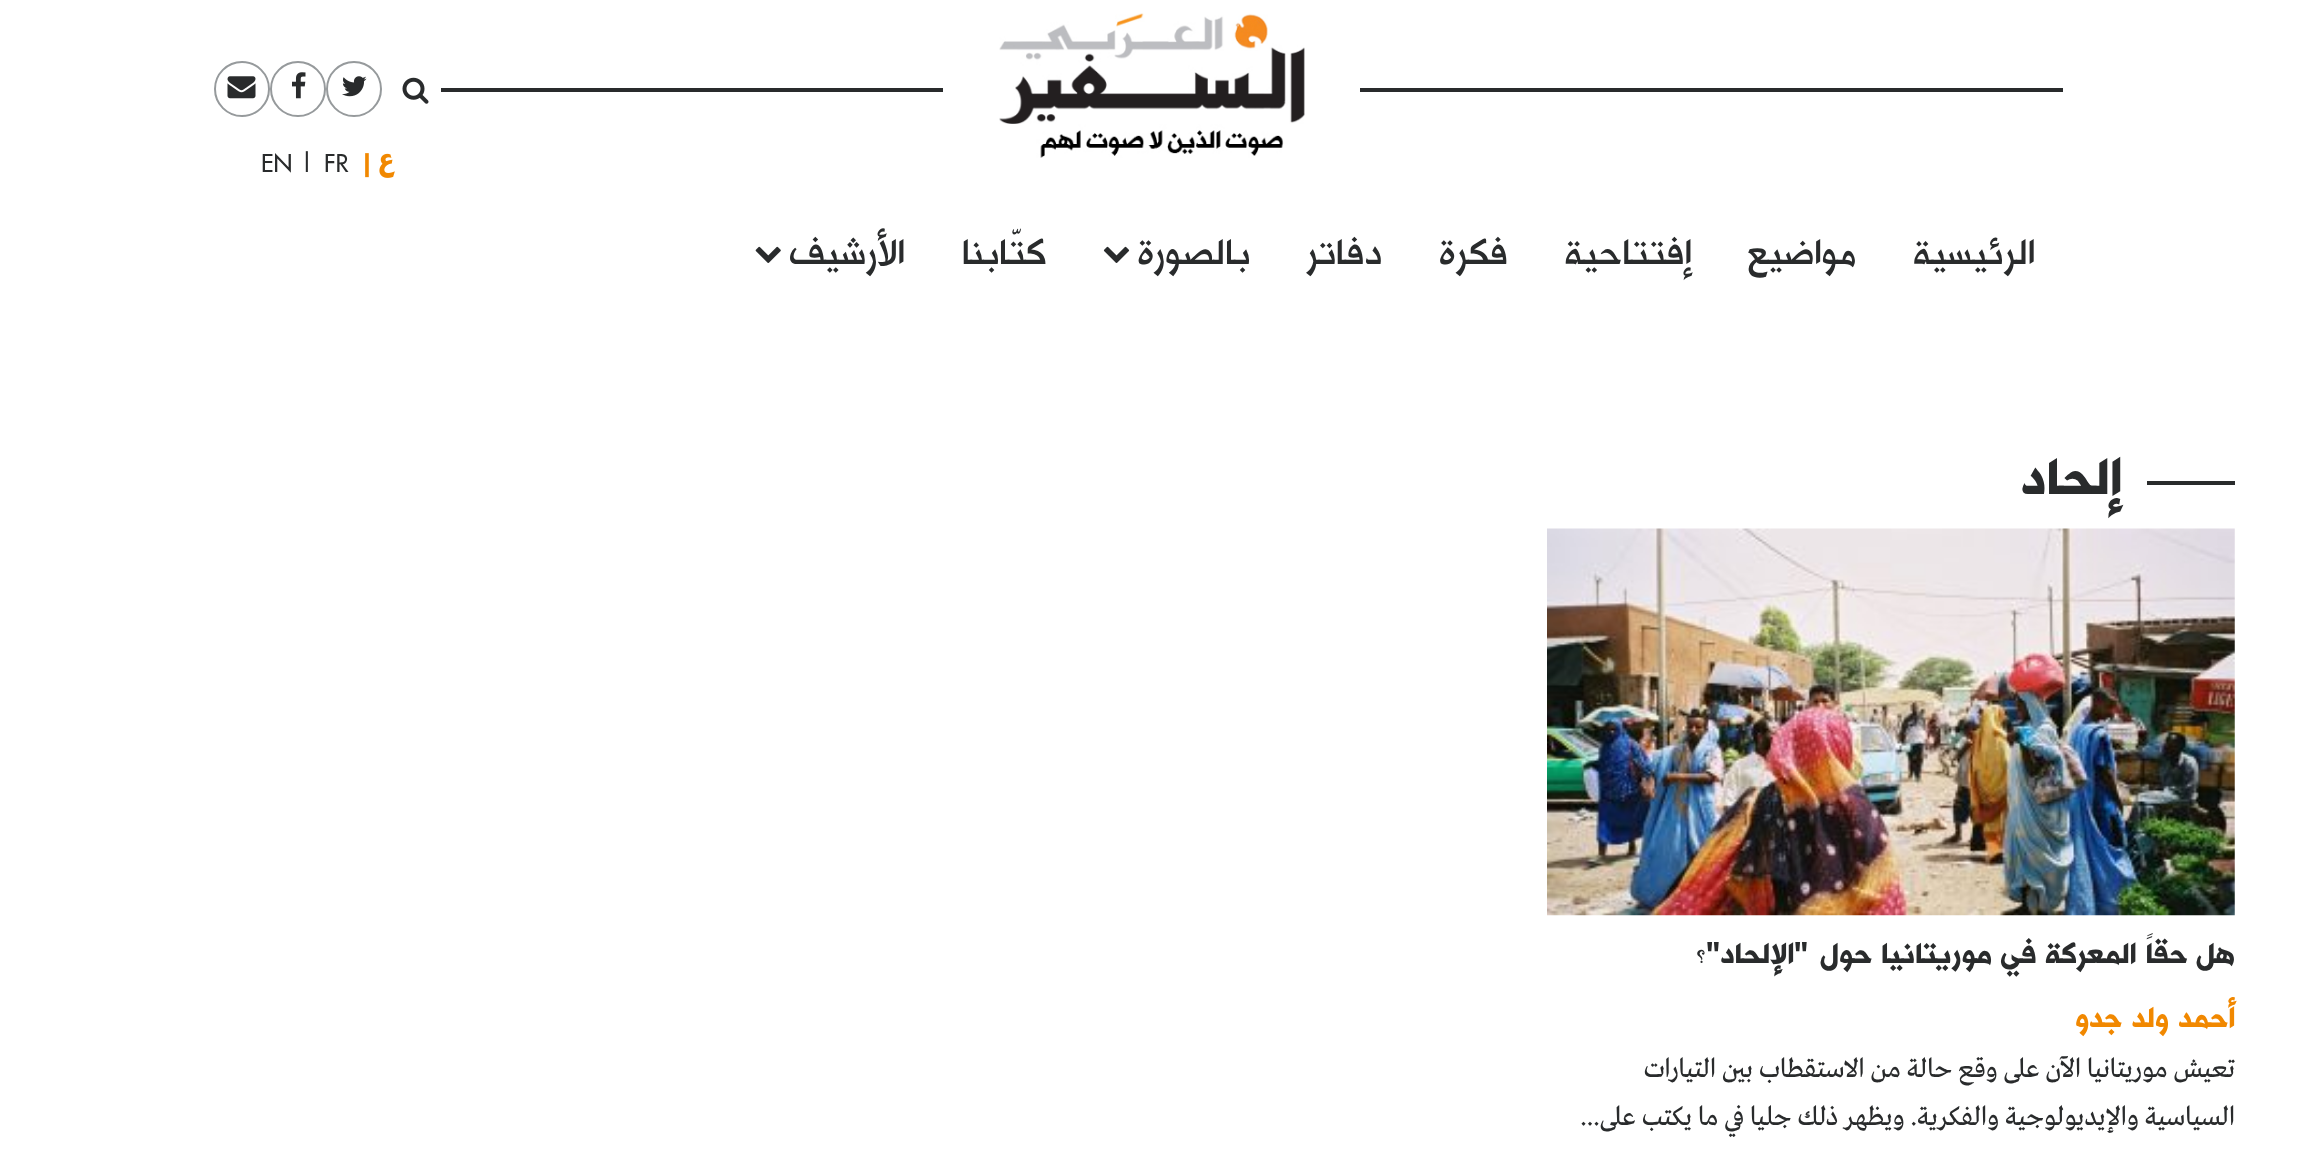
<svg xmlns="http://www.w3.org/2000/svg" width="2303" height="1158">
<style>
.a{font:bold 24px Futura;fill:#f18800}
.b{font:24px Futura;fill:#292b2c}
.c{font:39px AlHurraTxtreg;direction:rtl;fill:#292b2c}
.d{font:bold 50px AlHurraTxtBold;direction:rtl;fill:#292b2c}
.e{font:bold 28px AlHurraTxtBold;direction:rtl;fill:#292b2c}
.f{font:bold 28px Futura;direction:rtl;fill:#292b2c}
.g{font:bold 28px AlHurraTxtBold;direction:rtl;fill:#f18800}
.h{font:28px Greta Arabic;direction:rtl;fill:#292b2c}
</style>
<rect width="100%" height="100%" fill="#fff"/>
<path fill="#292b2c" d="M441 88h1622v4H441z"/>
<path fill="#fff" d="M943 88h417v4H943z"/>
<image href="1.png" x="999" y="13" width="306" height="145"/>
<image href="2.png" x="402" y="77" width="27" height="27"/>
<circle fill="none" stroke="#969a9c" stroke-width="2" cx="354" cy="89" r="27"/>
<image href="3.png" x="342" y="76" width="25" height="21"/>
<circle fill="none" stroke="#969a9c" stroke-width="2" cx="298" cy="89" r="27"/>
<image href="4.png" x="292" y="72" width="14" height="27"/>
<circle fill="none" stroke="#969a9c" stroke-width="2" cx="242" cy="89" r="27"/>
<image href="5.png" x="227" y="76" width="29" height="23"/>
<image href="6.png" x="379" y="153" width="16" height="25"/>
<image href="7.png" x="1103" y="246" width="27" height="17"/>
<image href="8.png" x="755" y="246" width="26" height="17"/>
<path fill="#292b2c" d="M2147 481h88v4H2147z"/>
<image href="9.png" x="1547" y="528" width="688" height="388"/>
<text class="a" x="360" y="172">|</text>
<text class="b" x="324" y="172">FR</text>
<text class="b" x="300" y="172">|</text>
<text class="b" x="261" y="172">EN</text>
<text class="c" x="2035" y="264">الرئيسية</text>
<text class="c" x="1856" y="264">مواضيع</text>
<text class="c" x="1692" y="264">إفتتاحية</text>
<text class="c" x="1508" y="264">فكرة</text>
<text class="c" x="1382" y="264">دفاتر</text>
<text class="c" x="1250" y="264">بالصورة</text>
<text class="c" x="1046" y="264">كتّابنا</text>
<text class="c" x="905" y="264">الأرشيف</text>
<text class="d" x="2122" y="494">إلحاد</text>
<text class="e" x="2235" y="963" word-spacing="3.5">هل حقاً المعركة في موريتانيا حول</text>
<text class="f" x="1808" y="963">"</text>
<text class="e" x="1794" y="963">الإلحاد</text>
<text class="f" x="1720" y="963">"</text>
<text class="e" x="1706" y="963">؟</text>
<text class="g" x="2235" y="1027" word-spacing="4">أحمد ولد جدو</text>
<text class="h" x="2235" y="1077">تعيش موريتانيا الآن على وقع حالة من الاستقطاب بين التيارات</text>
<text class="h" x="2235" y="1125">السياسية والإيديولوجية والفكرية. ويظهر ذلك جليا في ما يكتب على...</text>
</svg>
